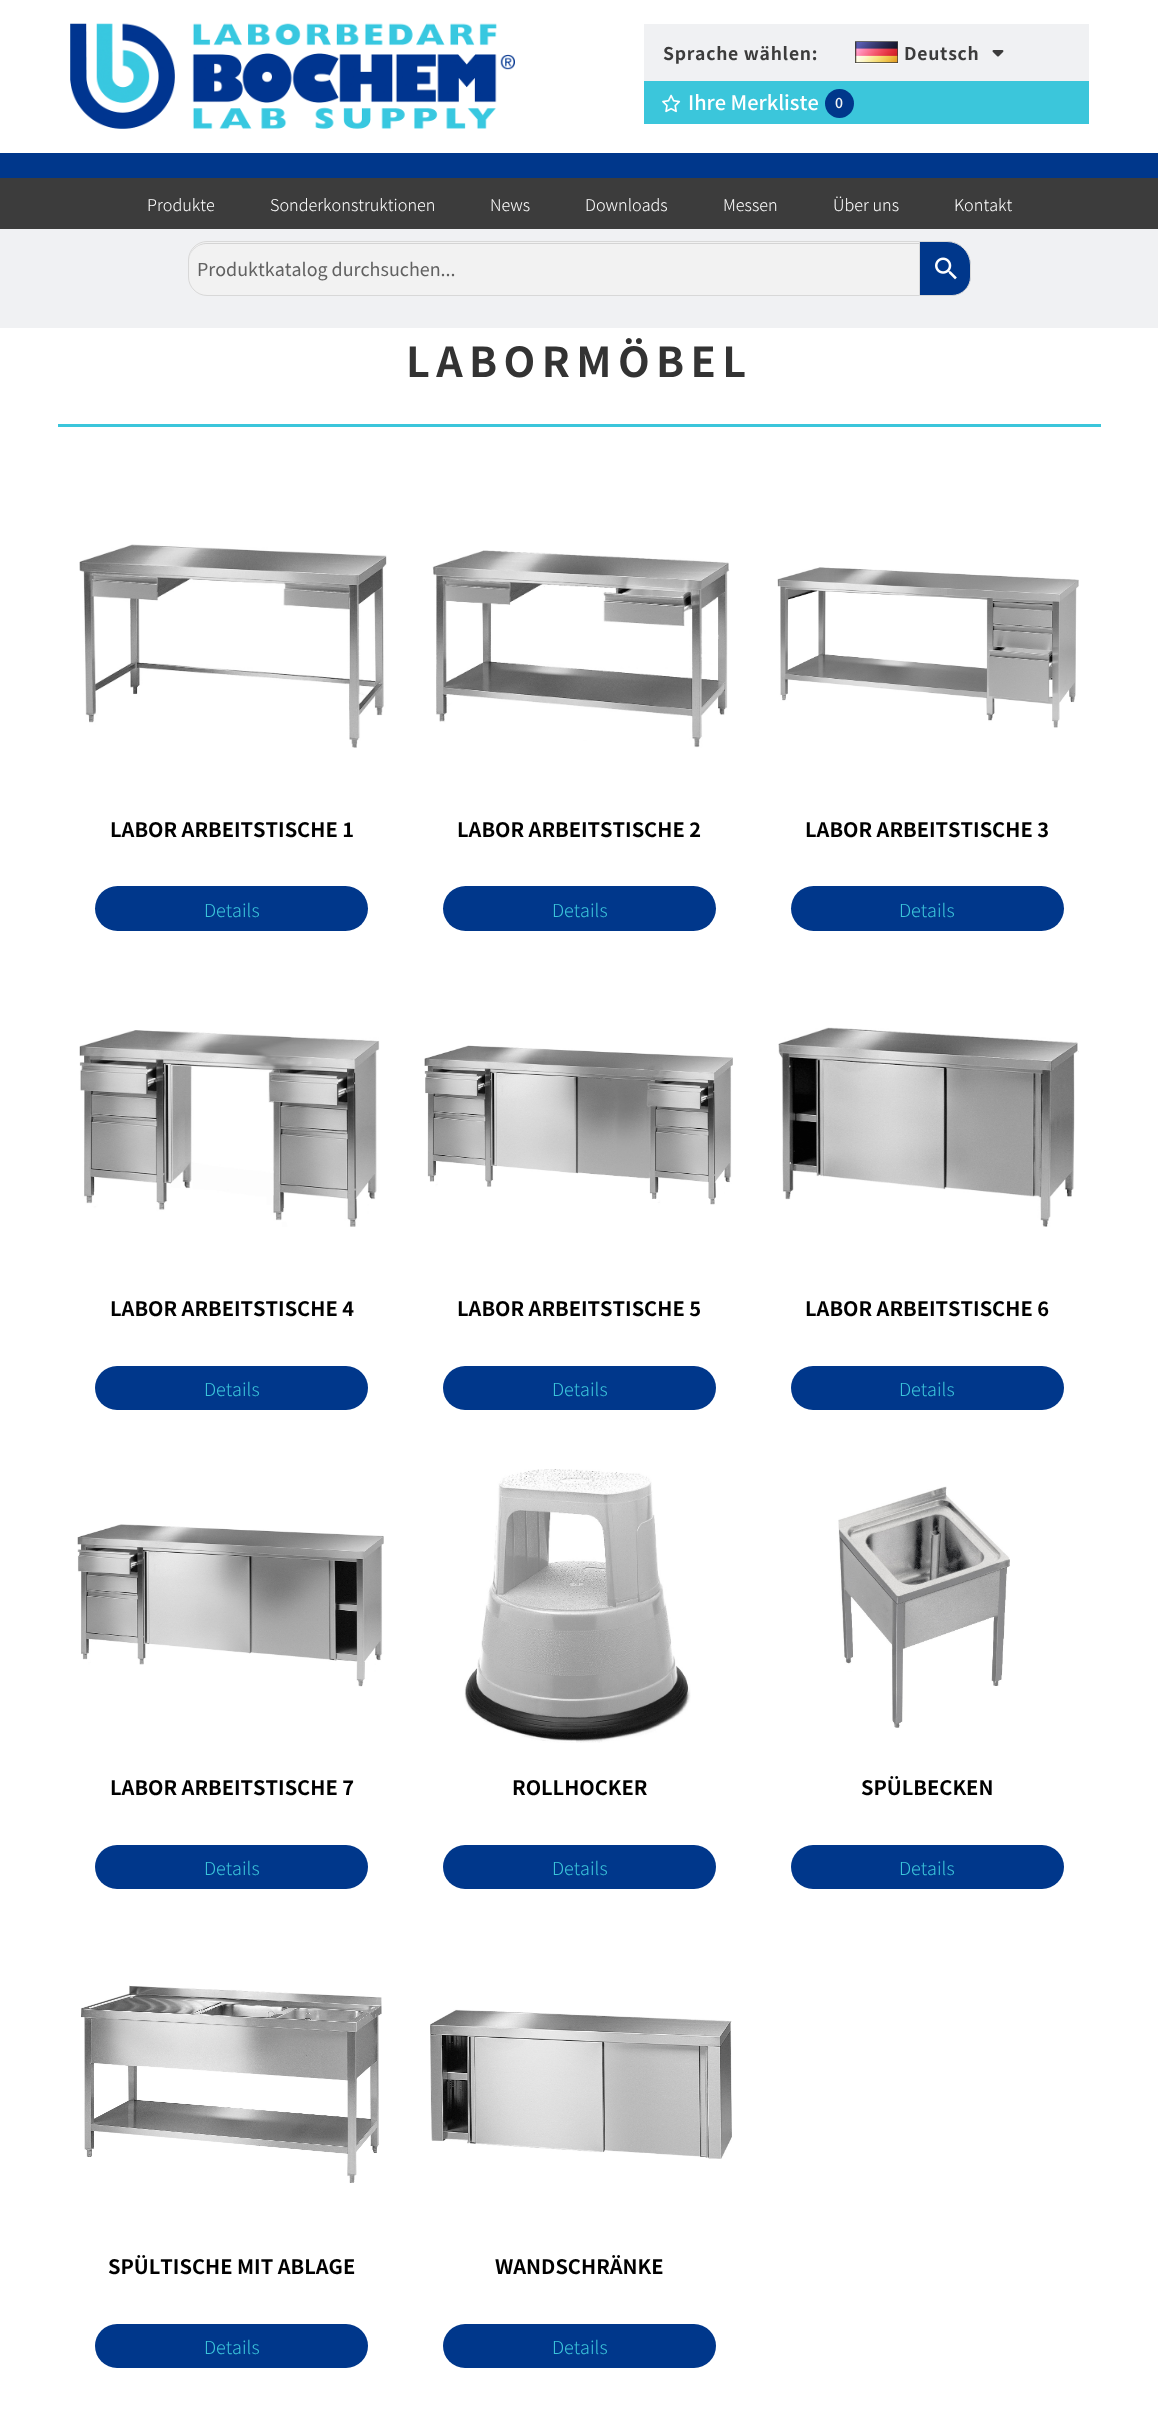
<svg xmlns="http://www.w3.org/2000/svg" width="1158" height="2433">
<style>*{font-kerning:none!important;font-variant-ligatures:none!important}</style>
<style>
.a{font:bold 17.5px Noto Sans SC;letter-spacing:0.75px;fill:#3c3c3c}
.b{font:500 20px Noto Sans SC;fill:#fff}
.c{font:500 14px Noto Sans SC;fill:#f3f4f5}
.d{font:300 16.25px Noto Sans SC;fill:#fff}
.e{font:20px Source Sans Pro;fill:#616161}
.f{font:bold 41.25px Noto Sans SC;letter-spacing:6.4px;fill:#333}
.g{font:bold 20px Noto Sans SC;fill:#000}
.h{font:300 18px Noto Sans SC;fill:#3bc6db}
</style>
<rect width="100%" height="100%" fill="#fff"/>
<path fill="#00378b" d="M0 153h1158v25H0z"/>
<image href="1.png" x="70" y="23" width="445" height="106"/>
<path fill="#f0f1f3" d="M644 24h445v57H644z"/>
<image href="2.png" x="855" y="41" width="44" height="23"/>
<image href="3.png" x="992" y="50" width="12" height="7"/>
<path fill="#3bc6db" d="M644 81h445v43H644z"/>
<image href="4.png" x="662" y="94" width="19" height="19"/>
<circle fill="#00378b" cx="839.5" cy="103.5" r="14.5"/>
<path fill="#3c3c3c" d="M0 178h1158v51H0z"/>
<path fill="#f0f1f3" d="M0 229h1158v99H0z"/>
<path fill="#00378b" stroke="#d8d8d8" d="M919.5 241.5h27.5c13 0 23.5 10.5 23.5 23.5v12c0 10-8.5 18.5-18.5 18.5h-32.5z"/>
<path fill="#f2f2f2" d="M207 241h713v55h-713c-10.5 0-19-8.5-19-19v-17c0-10.5 8.5-19 19-19z"/>
<path fill="#d4d4d4" d="M206 244c-9 0-17 8-17 17c0-10 8-18 18-18h712v1z"/>
<path fill="none" stroke="#d8d8d8" d="M207 241.5h712.5v54h-712.5c-10 0-18.5-8.5-18.5-18.5v-17c0-10 8.5-18.5 18.5-18.5z"/>
<image href="5.png" x="935" y="257" width="22" height="23"/>
<path fill="#3bc6db" d="M58 424h1043v3H58z"/>
<image href="6.png" x="79" y="544" width="308" height="204"/>
<rect fill="#00378b" x="95" y="886" width="273" height="45" rx="22.5"/>
<image href="7.png" x="432" y="550" width="298" height="198"/>
<rect fill="#00378b" x="443" y="886" width="273" height="45" rx="22.5"/>
<image href="8.png" x="777" y="567" width="302" height="161"/>
<rect fill="#00378b" x="791" y="886" width="273" height="45" rx="22.5"/>
<image href="9.png" x="79" y="1030" width="301" height="197"/>
<rect fill="#00378b" x="95" y="1366" width="273" height="44" rx="22"/>
<image href="10.png" x="424" y="1045" width="309" height="160"/>
<rect fill="#00378b" x="443" y="1366" width="273" height="44" rx="22"/>
<image href="11.png" x="778" y="1027" width="301" height="200"/>
<rect fill="#00378b" x="791" y="1366" width="273" height="44" rx="22"/>
<image href="12.png" x="77" y="1524" width="307" height="163"/>
<rect fill="#00378b" x="95" y="1845" width="273" height="44" rx="22"/>
<image href="13.png" x="464" y="1469" width="227" height="274"/>
<rect fill="#00378b" x="443" y="1845" width="273" height="44" rx="22"/>
<image href="14.png" x="838" y="1486" width="172" height="242"/>
<rect fill="#00378b" x="791" y="1845" width="273" height="44" rx="22"/>
<image href="15.png" x="81" y="1985" width="301" height="198"/>
<rect fill="#00378b" x="95" y="2324" width="273" height="44" rx="22"/>
<image href="16.png" x="430" y="2009" width="302" height="150"/>
<rect fill="#00378b" x="443" y="2324" width="273" height="44" rx="22"/>
<text class="a" x="663" y="60">Sprache wählen:</text>
<text class="a" x="904" y="60">Deutsch</text>
<text class="b" x="688" y="110">Ihre Merkliste</text>
<text class="c" x="835" y="108">0</text>
<text class="d" x="147" y="211">Produkte</text>
<text class="d" x="270" y="211">Sonderkonstruktionen</text>
<text class="d" x="490" y="211">News</text>
<text class="d" x="585" y="211">Downloads</text>
<text class="d" x="723" y="211">Messen</text>
<text class="d" x="833" y="211">Über uns</text>
<text class="d" x="954" y="211">Kontakt</text>
<text class="e" x="197" y="276">Produktkatalog durchsuchen...</text>
<text class="f" x="406" y="377">LABORMÖBEL</text>
<text class="g" x="110" y="837">LABOR ARBEITSTISCHE 1</text>
<text class="h" x="204" y="917">Details</text>
<text class="g" x="457" y="837">LABOR ARBEITSTISCHE 2</text>
<text class="h" x="552" y="917">Details</text>
<text class="g" x="805" y="837">LABOR ARBEITSTISCHE 3</text>
<text class="h" x="899" y="917">Details</text>
<text class="g" x="110" y="1316">LABOR ARBEITSTISCHE 4</text>
<text class="h" x="204" y="1396">Details</text>
<text class="g" x="457" y="1316">LABOR ARBEITSTISCHE 5</text>
<text class="h" x="552" y="1396">Details</text>
<text class="g" x="805" y="1316">LABOR ARBEITSTISCHE 6</text>
<text class="h" x="899" y="1396">Details</text>
<text class="g" x="110" y="1795">LABOR ARBEITSTISCHE 7</text>
<text class="h" x="204" y="1875">Details</text>
<text class="g" x="512" y="1795">ROLLHOCKER</text>
<text class="h" x="552" y="1875">Details</text>
<text class="g" x="861" y="1795">SPÜLBECKEN</text>
<text class="h" x="899" y="1875">Details</text>
<text class="g" x="108" y="2274">SPÜLTISCHE MIT ABLAGE</text>
<text class="h" x="204" y="2354">Details</text>
<text class="g" x="495" y="2274">WANDSCHRÄNKE</text>
<text class="h" x="552" y="2354">Details</text>
</svg>
